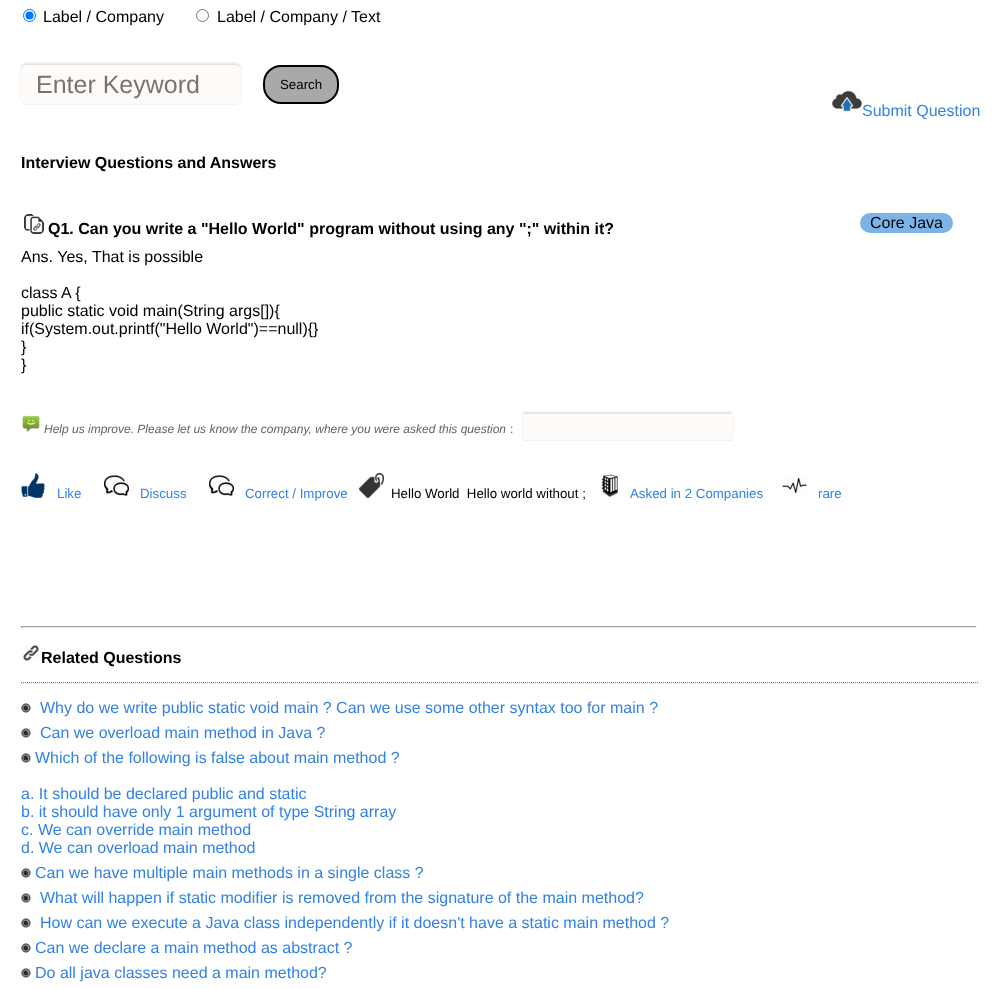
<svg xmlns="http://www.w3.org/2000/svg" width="998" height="989">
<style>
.a{font:16px Liberation Sans;fill:#000}
.b{font:25px Liberation Sans;fill:#757575}
.c{font:13.3px Liberation Sans;fill:#000}
.d{font:16px Liberation Sans;fill:#3282e6}
.e{font:bold 16px Liberation Sans;fill:#000}
.f{font:italic 12px Liberation Sans;fill:#636363}
.g{font:12px Liberation Sans;fill:#636363}
.h{font:13.3px Liberation Sans;fill:#3282e6}
</style>
<rect width="100%" height="100%" fill="#fff"/>
<circle fill="none" stroke="#0075ff" cx="29.5" cy="15.5" r="6"/>
<circle fill="#0075ff" cx="29.5" cy="15.5" r="4"/>
<circle fill="none" stroke="#767676" cx="202.5" cy="15.5" r="6"/>
<rect fill="#c7c7c78c" filter="blur(1px)" x="21" y="63" width="220" height="40" rx="6"/>
<rect fill="#fffbf8" x="21" y="65" width="220" height="40" rx="6"/>
<path fill="#f2f2f2" d="M21 98v1c0 3 3 6 6 6h208c3 0 6-3 6-6v-1c0 3-3 6-6 6h-208c-3 0-6-3-6-6z"/>
<rect fill="#a9a9a9" stroke="#000" stroke-width="2" x="264" y="66" width="74" height="37" rx="17"/>
<image href="1.png" x="832" y="90" width="30" height="22"/>
<image href="2.png" x="24" y="214" width="20" height="20"/>
<rect fill="#7db4e8" x="860" y="213" width="93" height="20" rx="10"/>
<image href="3.png" x="22" y="415" width="18" height="17"/>
<path fill="#c7c7c78c" filter="blur(1px)" d="M523 412h209v27H523z"/>
<path fill="#fffbf8" d="M523 414h209v26H523z"/>
<path fill="#f2f2f2" d="M523 440h209v1H523z"/>
<image href="4.png" x="21" y="473" width="24" height="25"/>
<image href="5.png" x="104" y="475" width="25" height="21"/>
<image href="5.png" x="209" y="475" width="25" height="21"/>
<image href="6.png" x="359" y="473" width="25" height="25"/>
<image href="7.png" x="601" y="474" width="17" height="23"/>
<image href="8.png" x="782" y="477" width="25" height="17"/>
<path fill="#9f9f9f" d="M21 626h956v1H21z"/>
<path fill="#eee" d="M976 626h1v2H976z"/>
<path fill="#eee" d="M21 627h956v1H21z"/>
<path fill="#9f9f9f" d="M21 626h1v2H21z"/>
<image href="9.png" x="23" y="645" width="16" height="16"/>
<path fill="none" stroke="#808080" stroke-dasharray="1 1" d="M21 682.5h958"/>
<path fill="#eee" d="M978 682h1v2H978z"/>
<path fill="#eee" d="M21 683h958v1H21z"/>
<path fill="#9f9f9f" d="M21 682h1v2H21z"/>
<image href="10.png" x="21" y="703" width="10" height="10"/>
<image href="10.png" x="21" y="728" width="10" height="10"/>
<image href="10.png" x="21" y="753" width="10" height="10"/>
<image href="10.png" x="21" y="868" width="10" height="10"/>
<image href="10.png" x="21" y="893" width="10" height="10"/>
<image href="10.png" x="21" y="918" width="10" height="10"/>
<image href="10.png" x="21" y="943" width="10" height="10"/>
<image href="10.png" x="21" y="968" width="10" height="10"/>
<text class="a" x="43" y="22">Label / Company</text>
<text class="a" x="217" y="22">Label / Company / Text</text>
<text class="b" x="36" y="93">Enter Keyword</text>
<text class="c" x="280" y="89">Search</text>
<text class="d" x="862" y="116">Submit Question</text>
<text class="e" x="21" y="168">Interview Questions and Answers</text>
<text class="e" x="48" y="234">Q1. Can you write a "Hello World" program without using any ";" within it?</text>
<text class="a" x="870" y="228">Core Java</text>
<text class="a" x="21" y="262">Ans. Yes, That is possible</text>
<text class="a" x="21" y="298">class A {</text>
<text class="a" x="21" y="316">public static void main(String args[]){</text>
<text class="a" x="21" y="334">if(System.out.printf("Hello World")==null){}</text>
<text class="a" x="21" y="352">}</text>
<text class="a" x="21" y="370">}</text>
<text class="f" x="44" y="433">Help us improve. Please let us know the company, where you were asked this question</text>
<text class="g" x="510" y="433">:</text>
<text class="h" x="57" y="498">Like</text>
<text class="h" x="140" y="498">Discuss</text>
<text class="h" x="245" y="498">Correct / Improve</text>
<text class="c" xml:space="preserve" x="391" y="498">Hello World  Hello world without ;</text>
<text class="h" x="630" y="498">Asked in 2 Companies</text>
<text class="h" x="818" y="498">rare</text>
<text class="e" x="41" y="663">Related Questions</text>
<text class="d" x="40" y="713">Why do we write public static void main ? Can we use some other syntax too for main ?</text>
<text class="d" x="40" y="738">Can we overload main method in Java ?</text>
<text class="d" x="35" y="763">Which of the following is false about main method ?</text>
<text class="d" x="21" y="799">a. It should be declared public and static</text>
<text class="d" x="21" y="817">b. it should have only 1 argument of type String array</text>
<text class="d" x="21" y="835">c. We can override main method</text>
<text class="d" x="21" y="853">d. We can overload main method</text>
<text class="d" x="35" y="878">Can we have multiple main methods in a single class ?</text>
<text class="d" x="40" y="903">What will happen if static modifier is removed from the signature of the main method?</text>
<text class="d" x="40" y="928">How can we execute a Java class independently if it doesn't have a static main method ?</text>
<text class="d" x="35" y="953">Can we declare a main method as abstract ?</text>
<text class="d" x="35" y="978">Do all java classes need a main method?</text>
</svg>
